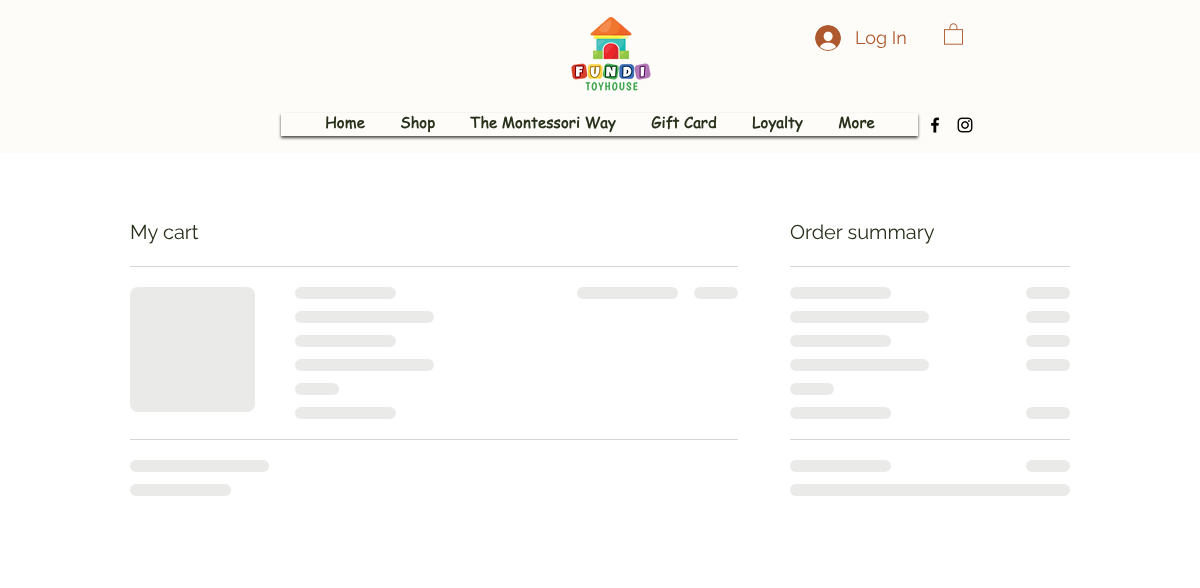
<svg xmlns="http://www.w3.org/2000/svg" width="1200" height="588">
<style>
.a{font:18px Raleway;fill:#ae582d}
.b{font:bold 15px 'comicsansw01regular';fill:#28311b}
.c{font:20px Raleway;fill:#28311b}
</style>
<defs>
<clipPath id="clip1"><path d="M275 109h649v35h-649zm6 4h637v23h-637z" clip-rule="evenodd"/></clipPath>
<linearGradient id="g1" gradientUnits="userSpaceOnUse" x1="130" y1="350" x2="630" y2="350"><stop offset="0.25" stop-color="#eaeae8"/><stop offset="0.37" stop-color="#d4d6d1"/><stop offset="0.63" stop-color="#eaeae8"/></linearGradient>
<linearGradient id="g2" gradientUnits="userSpaceOnUse" x1="295" y1="293" x2="699" y2="293"><stop offset="0.25" stop-color="#eaeae8"/><stop offset="0.37" stop-color="#d4d6d1"/><stop offset="0.63" stop-color="#eaeae8"/></linearGradient>
<linearGradient id="g3" gradientUnits="userSpaceOnUse" x1="295" y1="317" x2="851" y2="317"><stop offset="0.25" stop-color="#eaeae8"/><stop offset="0.37" stop-color="#d4d6d1"/><stop offset="0.63" stop-color="#eaeae8"/></linearGradient>
<linearGradient id="g4" gradientUnits="userSpaceOnUse" x1="295" y1="341" x2="699" y2="341"><stop offset="0.25" stop-color="#eaeae8"/><stop offset="0.37" stop-color="#d4d6d1"/><stop offset="0.63" stop-color="#eaeae8"/></linearGradient>
<linearGradient id="g5" gradientUnits="userSpaceOnUse" x1="295" y1="365" x2="851" y2="365"><stop offset="0.25" stop-color="#eaeae8"/><stop offset="0.37" stop-color="#d4d6d1"/><stop offset="0.63" stop-color="#eaeae8"/></linearGradient>
<linearGradient id="g6" gradientUnits="userSpaceOnUse" x1="295" y1="389" x2="471" y2="389"><stop offset="0.25" stop-color="#eaeae8"/><stop offset="0.37" stop-color="#d4d6d1"/><stop offset="0.63" stop-color="#eaeae8"/></linearGradient>
<linearGradient id="g7" gradientUnits="userSpaceOnUse" x1="295" y1="413" x2="699" y2="413"><stop offset="0.25" stop-color="#eaeae8"/><stop offset="0.37" stop-color="#d4d6d1"/><stop offset="0.63" stop-color="#eaeae8"/></linearGradient>
<linearGradient id="g8" gradientUnits="userSpaceOnUse" x1="577" y1="293" x2="981" y2="293"><stop offset="0.25" stop-color="#eaeae8"/><stop offset="0.37" stop-color="#d4d6d1"/><stop offset="0.63" stop-color="#eaeae8"/></linearGradient>
<linearGradient id="g9" gradientUnits="userSpaceOnUse" x1="694" y1="293" x2="870" y2="293"><stop offset="0.25" stop-color="#eaeae8"/><stop offset="0.37" stop-color="#d4d6d1"/><stop offset="0.63" stop-color="#eaeae8"/></linearGradient>
<linearGradient id="g10" gradientUnits="userSpaceOnUse" x1="130" y1="466" x2="686" y2="466"><stop offset="0.25" stop-color="#eaeae8"/><stop offset="0.37" stop-color="#d4d6d1"/><stop offset="0.63" stop-color="#eaeae8"/></linearGradient>
<linearGradient id="g11" gradientUnits="userSpaceOnUse" x1="130" y1="490" x2="534" y2="490"><stop offset="0.25" stop-color="#eaeae8"/><stop offset="0.37" stop-color="#d4d6d1"/><stop offset="0.63" stop-color="#eaeae8"/></linearGradient>
<linearGradient id="g12" gradientUnits="userSpaceOnUse" x1="790" y1="293" x2="1194" y2="293"><stop offset="0.25" stop-color="#eaeae8"/><stop offset="0.37" stop-color="#d4d6d1"/><stop offset="0.63" stop-color="#eaeae8"/></linearGradient>
<linearGradient id="g13" gradientUnits="userSpaceOnUse" x1="1026" y1="293" x2="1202" y2="293"><stop offset="0.25" stop-color="#eaeae8"/><stop offset="0.37" stop-color="#d4d6d1"/><stop offset="0.63" stop-color="#eaeae8"/></linearGradient>
<linearGradient id="g14" gradientUnits="userSpaceOnUse" x1="790" y1="317" x2="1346" y2="317"><stop offset="0.25" stop-color="#eaeae8"/><stop offset="0.37" stop-color="#d4d6d1"/><stop offset="0.63" stop-color="#eaeae8"/></linearGradient>
<linearGradient id="g15" gradientUnits="userSpaceOnUse" x1="1026" y1="317" x2="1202" y2="317"><stop offset="0.25" stop-color="#eaeae8"/><stop offset="0.37" stop-color="#d4d6d1"/><stop offset="0.63" stop-color="#eaeae8"/></linearGradient>
<linearGradient id="g16" gradientUnits="userSpaceOnUse" x1="790" y1="341" x2="1194" y2="341"><stop offset="0.25" stop-color="#eaeae8"/><stop offset="0.37" stop-color="#d4d6d1"/><stop offset="0.63" stop-color="#eaeae8"/></linearGradient>
<linearGradient id="g17" gradientUnits="userSpaceOnUse" x1="1026" y1="341" x2="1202" y2="341"><stop offset="0.25" stop-color="#eaeae8"/><stop offset="0.37" stop-color="#d4d6d1"/><stop offset="0.63" stop-color="#eaeae8"/></linearGradient>
<linearGradient id="g18" gradientUnits="userSpaceOnUse" x1="790" y1="365" x2="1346" y2="365"><stop offset="0.25" stop-color="#eaeae8"/><stop offset="0.37" stop-color="#d4d6d1"/><stop offset="0.63" stop-color="#eaeae8"/></linearGradient>
<linearGradient id="g19" gradientUnits="userSpaceOnUse" x1="1026" y1="365" x2="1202" y2="365"><stop offset="0.25" stop-color="#eaeae8"/><stop offset="0.37" stop-color="#d4d6d1"/><stop offset="0.63" stop-color="#eaeae8"/></linearGradient>
<linearGradient id="g20" gradientUnits="userSpaceOnUse" x1="790" y1="389" x2="966" y2="389"><stop offset="0.25" stop-color="#eaeae8"/><stop offset="0.37" stop-color="#d4d6d1"/><stop offset="0.63" stop-color="#eaeae8"/></linearGradient>
<linearGradient id="g21" gradientUnits="userSpaceOnUse" x1="790" y1="413" x2="1194" y2="413"><stop offset="0.25" stop-color="#eaeae8"/><stop offset="0.37" stop-color="#d4d6d1"/><stop offset="0.63" stop-color="#eaeae8"/></linearGradient>
<linearGradient id="g22" gradientUnits="userSpaceOnUse" x1="1026" y1="413" x2="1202" y2="413"><stop offset="0.25" stop-color="#eaeae8"/><stop offset="0.37" stop-color="#d4d6d1"/><stop offset="0.63" stop-color="#eaeae8"/></linearGradient>
<linearGradient id="g23" gradientUnits="userSpaceOnUse" x1="790" y1="466" x2="1194" y2="466"><stop offset="0.25" stop-color="#eaeae8"/><stop offset="0.37" stop-color="#d4d6d1"/><stop offset="0.63" stop-color="#eaeae8"/></linearGradient>
<linearGradient id="g24" gradientUnits="userSpaceOnUse" x1="1026" y1="466" x2="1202" y2="466"><stop offset="0.25" stop-color="#eaeae8"/><stop offset="0.37" stop-color="#d4d6d1"/><stop offset="0.63" stop-color="#eaeae8"/></linearGradient>
<linearGradient id="g25" gradientUnits="userSpaceOnUse" x1="790" y1="490" x2="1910" y2="490"><stop offset="0.25" stop-color="#eaeae8"/><stop offset="0.37" stop-color="#d4d6d1"/><stop offset="0.63" stop-color="#eaeae8"/></linearGradient>
</defs>
<rect width="100%" height="100%" fill="#fff"/>
<path fill="#fdfcf9" d="M0 0h1200v153H0z"/>
<image href="1.png" x="571" y="16" width="80" height="75"/>
<image href="2.png" x="815" y="25" width="26" height="26"/>
<image href="3.png" x="944" y="23" width="19" height="22"/>
<g clip-path="url(#clip1)">
<path fill="#000000b3" filter="blur(1.5px)" d="M281 115h637v23H281z"/>
</g>
<image href="4.png" x="931" y="117" width="9" height="16"/>
<image href="5.png" x="957" y="117" width="16" height="16"/>
<path fill="#d4d6d1" d="M130 266h608v1H130z"/>
<rect fill="url(#g1)" x="130" y="287" width="125" height="125" rx="8"/>
<rect fill="url(#g2)" x="295" y="287" width="101" height="12" rx="6"/>
<rect fill="url(#g3)" x="295" y="311" width="139" height="12" rx="6"/>
<rect fill="url(#g4)" x="295" y="335" width="101" height="12" rx="6"/>
<rect fill="url(#g5)" x="295" y="359" width="139" height="12" rx="6"/>
<rect fill="url(#g6)" x="295" y="383" width="44" height="12" rx="6"/>
<rect fill="url(#g7)" x="295" y="407" width="101" height="12" rx="6"/>
<rect fill="url(#g8)" x="577" y="287" width="101" height="12" rx="6"/>
<rect fill="url(#g9)" x="694" y="287" width="44" height="12" rx="6"/>
<path fill="#d4d6d1" d="M130 439h608v1H130z"/>
<rect fill="url(#g10)" x="130" y="460" width="139" height="12" rx="6"/>
<rect fill="url(#g11)" x="130" y="484" width="101" height="12" rx="6"/>
<path fill="#d4d6d1" d="M790 266h280v1H790z"/>
<rect fill="url(#g12)" x="790" y="287" width="101" height="12" rx="6"/>
<rect fill="url(#g13)" x="1026" y="287" width="44" height="12" rx="6"/>
<rect fill="url(#g14)" x="790" y="311" width="139" height="12" rx="6"/>
<rect fill="url(#g15)" x="1026" y="311" width="44" height="12" rx="6"/>
<rect fill="url(#g16)" x="790" y="335" width="101" height="12" rx="6"/>
<rect fill="url(#g17)" x="1026" y="335" width="44" height="12" rx="6"/>
<rect fill="url(#g18)" x="790" y="359" width="139" height="12" rx="6"/>
<rect fill="url(#g19)" x="1026" y="359" width="44" height="12" rx="6"/>
<rect fill="url(#g20)" x="790" y="383" width="44" height="12" rx="6"/>
<rect fill="url(#g21)" x="790" y="407" width="101" height="12" rx="6"/>
<rect fill="url(#g22)" x="1026" y="407" width="44" height="12" rx="6"/>
<path fill="#d4d6d1" d="M790 439h280v1H790z"/>
<rect fill="url(#g23)" x="790" y="460" width="101" height="12" rx="6"/>
<rect fill="url(#g24)" x="1026" y="460" width="44" height="12" rx="6"/>
<rect fill="url(#g25)" x="790" y="484" width="280" height="12" rx="6"/>
<text class="a" x="855" y="44">Log In</text>
<text class="b" x="325" y="128">Home</text>
<text class="b" x="400" y="128">Shop</text>
<text class="b" x="470" y="128">The Montessori Way</text>
<text class="b" x="651" y="128">Gift Card</text>
<text class="b" x="752" y="128">Loyalty</text>
<text class="b" x="838" y="128">More</text>
<text class="c" x="130" y="239">My cart</text>
<text class="c" x="790" y="239">Order summary</text>
</svg>
